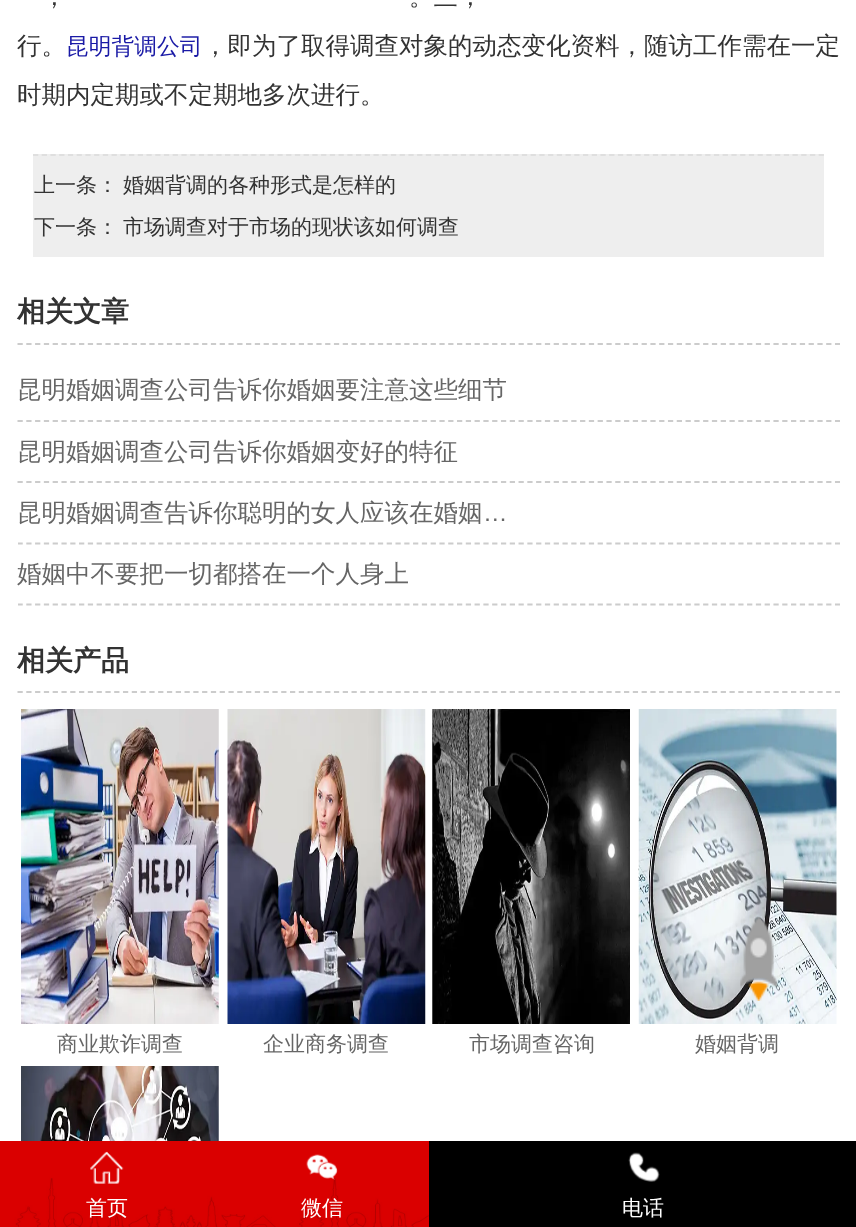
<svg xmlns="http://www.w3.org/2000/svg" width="856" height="1227">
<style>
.a{font:500 24.5px WenQuanYi Zen Hei;fill:#333}
.b{font:500 22.75px WenQuanYi Zen Hei;fill:#1a1aa6}
.c{font:500 21px WenQuanYi Zen Hei;fill:#333}
.d{font:bold 28px WenQuanYi Zen Hei;fill:#333}
.e{font:500 24.5px WenQuanYi Zen Hei;fill:#666}
.f{font:24.5px Liberation Sans;fill:#666}
.g{font:500 21px WenQuanYi Zen Hei;fill:#666}
.h{font:500 21px WenQuanYi Zen Hei;fill:#fff}
</style>
<defs>
<clipPath id="clip1"><path d="M18 292h822v314H18z"/></clipPath>
</defs>
<rect width="100%" height="100%" fill="#fff"/>
<path fill="#eee" d="M33 154h791v103H33z"/>
<path fill="none" stroke="#dfdfdf" stroke-width="1.8" stroke-dasharray="5.25 3.48" d="M33 155h791"/>
<path fill="none" stroke="#ccc" stroke-width="1.8" stroke-dasharray="5.25 3.54" d="M17.5 344h822.5"/>
<path fill="none" stroke="#ccc" stroke-width="1.8" stroke-dasharray="5.25 3.54" d="M17.5 421h822.5"/>
<path fill="none" stroke="#ccc" stroke-width="1.8" stroke-dasharray="5.25 3.54" d="M17.5 482h822.5"/>
<g clip-path="url(#clip1)">
<path fill="none" stroke="#ccc" stroke-width="1.8" stroke-dasharray="5.25 3.54" d="M17.5 543.5h822.5"/>
<path fill="none" stroke="#ccc" stroke-width="1.8" stroke-dasharray="5.25 3.54" d="M17.5 604.5h822.5"/>
</g>
<path fill="none" stroke="#ccc" stroke-width="1.8" stroke-dasharray="5.25 3.54" d="M17.5 692h822.5"/>
<image href="1.png" x="21" y="709" width="198" height="315"/>
<image href="2.png" x="227" y="709" width="199" height="315"/>
<image href="3.png" x="432" y="709" width="198" height="315"/>
<image href="4.png" x="638" y="709" width="199" height="315"/>
<image href="5.png" x="21" y="1066" width="198" height="75"/>
<image href="6.png" x="740" y="917" width="38" height="84"/>
<image href="7.png" x="0" y="1141" width="429" height="86"/>
<image href="8.png" x="90" y="1151" width="34" height="33"/>
<image href="9.png" x="306" y="1154" width="32" height="26"/>
<path fill="#000" d="M429 1141h427v86H429z"/>
<image href="10.png" x="628" y="1152" width="32" height="30"/>
<text class="a" x="42" y="5">，</text>
<text class="a" x="409" y="5">。三，</text>
<text class="a" x="17" y="54">行。</text>
<text class="b" x="66" y="54">昆明背调公司</text>
<text class="a" x="203" y="54">，即为了取得调查对象的动态变化资料，随访工作需在一定</text>
<text class="a" x="17" y="103">时期内定期或不定期地多次进行。</text>
<text class="c" x="34" y="192">上一条：</text>
<text class="c" x="123" y="192">婚姻背调的各种形式是怎样的</text>
<text class="c" x="34" y="234">下一条：</text>
<text class="c" x="123" y="234">市场调查对于市场的现状该如何调查</text>
<text class="d" x="17" y="321">相关文章</text>
<text class="e" x="17" y="398">昆明婚姻调查公司告诉你婚姻要注意这些细节</text>
<text class="e" x="17" y="460">昆明婚姻调查公司告诉你婚姻变好的特征</text>
<text class="e" x="17" y="521">昆明婚姻调查告诉你聪明的女人应该在婚姻</text>
<text class="f" x="483" y="521">…</text>
<text class="e" x="17" y="582">婚姻中不要把一切都搭在一个人身上</text>
<text class="d" x="17" y="670">相关产品</text>
<text class="g" x="57" y="1051">商业欺诈调查</text>
<text class="g" x="263" y="1051">企业商务调查</text>
<text class="g" x="469" y="1051">市场调查咨询</text>
<text class="g" x="695" y="1051">婚姻背调</text>
<text class="h" x="86" y="1215">首页</text>
<text class="h" x="301" y="1215">微信</text>
<text class="h" x="622" y="1215">电话</text>
</svg>
